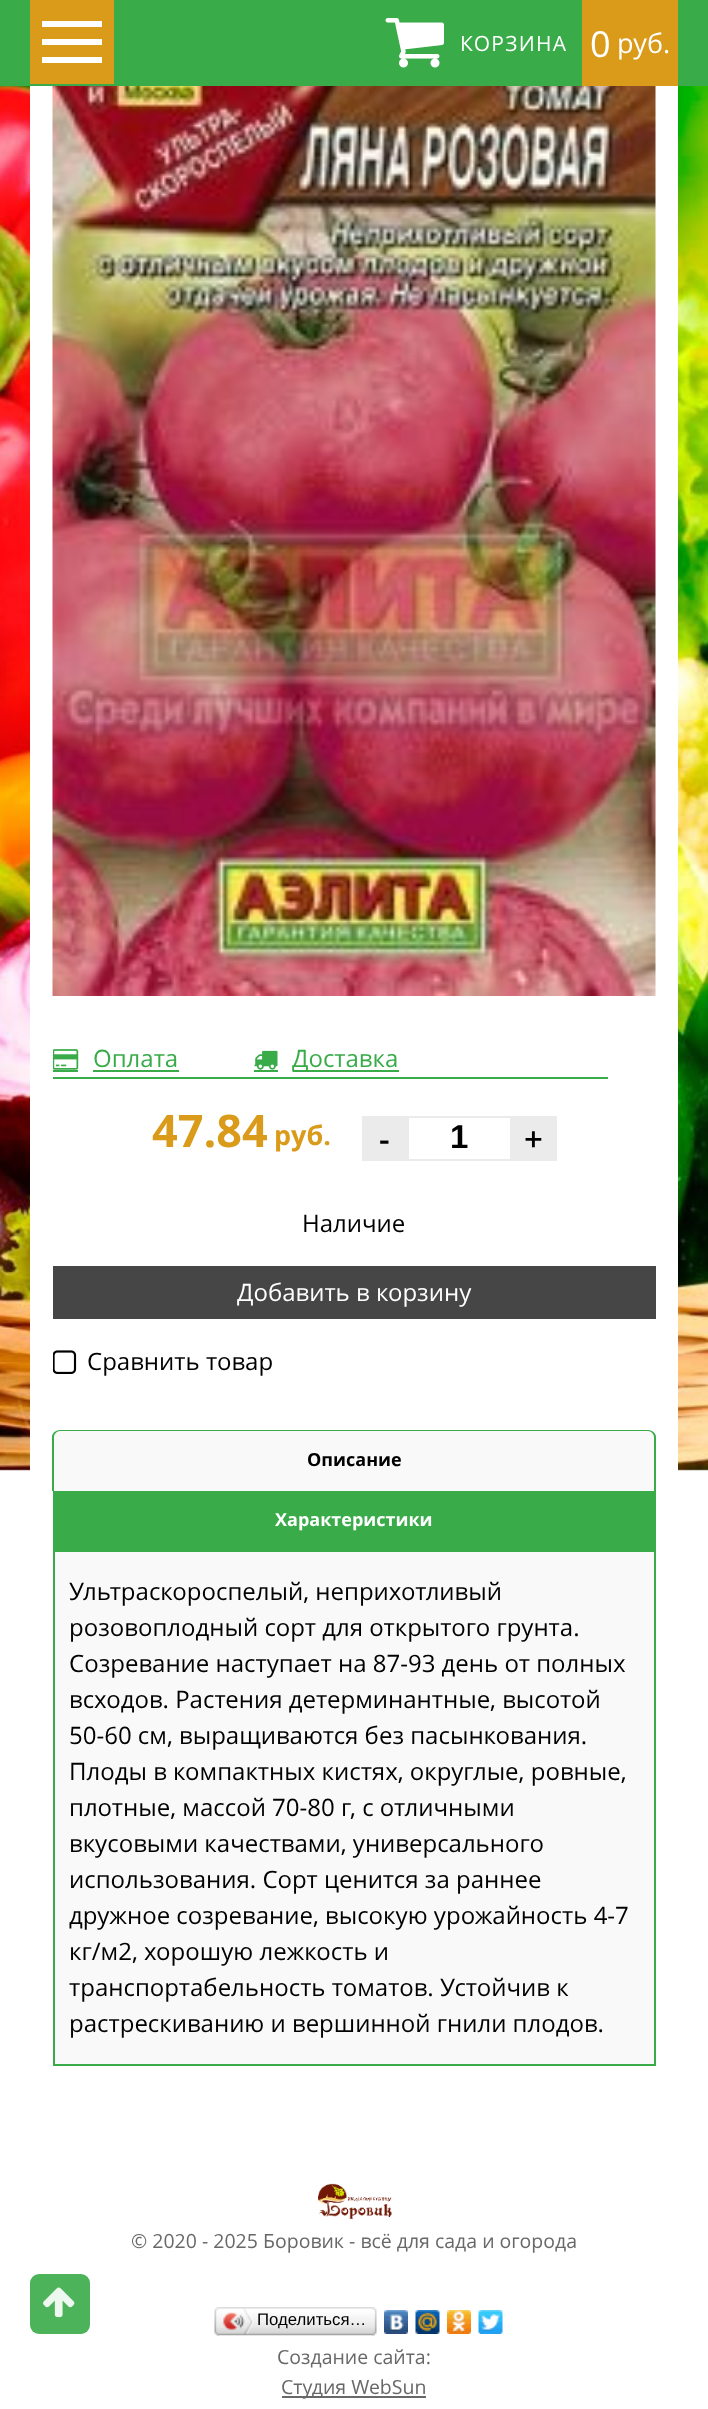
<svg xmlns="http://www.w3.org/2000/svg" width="708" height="2409">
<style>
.a{font:21px Open Sans;letter-spacing:1.25px;fill:#fff}
.b{font:36px Open Sans;fill:#fff}
.c{font:27px Open Sans;fill:#fff}
.d{font:24px Open Sans;fill:#39ab49}
.e{font:bold 45px Open Sans;fill:#d99b19}
.f{font:bold 27px Open Sans;fill:#d99b19}
.g{font:600 33px Open Sans;fill:#000}
.h{font:bold 33px Liberation Sans;fill:#000}
.i{font:24px Open Sans;fill:#000}
.j{font:24px Open Sans;fill:#fff}
.k{font:bold 18px Open Sans;fill:#000}
.l{font:bold 18px Open Sans;fill:#fff}
.m{font:19.5px Open Sans;fill:#686868}
.n{font:16.75px Liberation Sans;fill:#000}
</style>
<rect width="100%" height="100%" fill="#fff"/>
<image href="1.png" x="0" y="86" width="708" height="1385"/>
<path fill="#39ab49" d="M0 0h708v86H0z"/>
<path fill="#d99b19" d="M30 0h84v84H30z"/>
<path fill="#fff" d="M42 21h60v6H42z"/>
<path fill="#fff" d="M42 39h60v6H42z"/>
<path fill="#fff" d="M42 57h60v6H42z"/>
<image href="2.png" x="385" y="18" width="59" height="50"/>
<path fill="#d99b19" d="M582 0h96v86H582z"/>
<path fill="#fff" d="M30 86h648v1385H30z"/>
<image href="3.png" x="52" y="86" width="604" height="910"/>
<path fill="#39ab49" d="M53 1077h555v2H53z"/>
<image href="4.png" x="53" y="1049" width="26" height="21"/>
<path fill="#39ab49" d="M53 1070h25v2H53z"/>
<path fill="#39ab49" d="M93 1070h86v2H93z"/>
<image href="5.png" x="254" y="1050" width="24" height="20"/>
<path fill="#39ab49" d="M254 1070h24v2H254z"/>
<path fill="#39ab49" d="M293 1070h106v2H293z"/>
<path fill="#ebebeb" d="M362 1116h45v45H362z"/>
<path fill="none" stroke="#ebebeb" stroke-width="2" d="M408 1117h103v43H408z"/>
<path fill="#ebebeb" d="M512 1116h45v45H512z"/>
<path fill="#464646" d="M53 1266h603v53H53z"/>
<image href="6.png" x="53" y="1350" width="24" height="24"/>
<path fill="#f9f9f9" d="M61 1430h587c4.5 0 8 3.5 8 8v53h-603v-53c0-4.5 3.5-8 8-8z"/>
<path fill="#39ab49" fill-rule="evenodd" d="M60 1430h588c4 0 8 3 8 7v54h-604v-54c0-4 4-7 8-7zm0 1h588c3 0 6 3 6 6v54h-600v-54c0-3 3-6 6-6z"/>
<path fill="#39ab49" d="M53 1491h603v59H53z"/>
<path fill="#f9f9f9" stroke="#39ab49" stroke-width="2" d="M54 1551h601v514H54z"/>
<rect fill="#4db35b" x="30" y="2274" width="60" height="60" rx="9"/>
<image href="7.png" x="43" y="2287" width="32" height="31"/>
<image href="8.png" x="318" y="2183" width="74" height="36"/>
<image href="9.png" x="219" y="2307" width="153" height="29"/>
<image href="10.png" x="214" y="2307" width="5" height="29"/>
<image href="11.png" x="223" y="2308" width="31" height="26"/>
<image href="12.png" x="372" y="2307" width="5" height="29"/>
<image href="13.png" x="384" y="2310" width="24" height="24"/>
<image href="14.png" x="415" y="2310" width="25" height="24"/>
<image href="15.png" x="447" y="2310" width="24" height="24"/>
<image href="16.png" x="478" y="2310" width="25" height="24"/>
<path fill="#686868" d="M282 2396h144v2H282z"/>
<text class="a" x="460" y="51">КОРЗИНА</text>
<text class="b" x="590" y="57">0</text>
<text class="c" x="617" y="53">руб.</text>
<text class="d" x="93" y="1067">Оплата</text>
<text class="d" x="292" y="1067">Доставка</text>
<text class="e" x="152" y="1147">47.84</text>
<text class="f" x="274" y="1145">руб.</text>
<text class="g" x="379" y="1151">-</text>
<text class="h" x="450" y="1148">1</text>
<text class="g" x="524" y="1151">+</text>
<text class="i" x="302" y="1232">Наличие</text>
<text class="j" x="237" y="1301">Добавить в корзину</text>
<text class="i" x="87" y="1370">Cравнить товар</text>
<text class="k" x="307" y="1466">Описание</text>
<text class="l" x="275" y="1526">Характеристики</text>
<text class="i" x="69" y="1600">Ультраскороспелый, неприхотливый</text>
<text class="i" x="69" y="1636">розовоплодный сорт для открытого грунта.</text>
<text class="i" x="69" y="1672">Созревание наступает на 87-93 день от полных</text>
<text class="i" x="69" y="1708">всходов. Растения детерминантные, высотой</text>
<text class="i" x="69" y="1744">50-60 см, выращиваются без пасынкования.</text>
<text class="i" x="69" y="1780">Плоды в компактных кистях, округлые, ровные,</text>
<text class="i" x="69" y="1816">плотные, массой 70-80 г, с отличными</text>
<text class="i" x="69" y="1852">вкусовыми качествами, универсального</text>
<text class="i" x="69" y="1888">использования. Сорт ценится за раннее</text>
<text class="i" x="69" y="1924">дружное созревание, высокую урожайность 4-7</text>
<text class="i" x="69" y="1960">кг/м2, хорошую лежкость и</text>
<text class="i" x="69" y="1996">транспортабельность томатов. Устойчив к</text>
<text class="i" x="69" y="2032">растрескиванию и вершинной гнили плодов.</text>
<text class="m" x="131" y="2248">© 2020 - 2025 Боровик - всё для сада и огорода</text>
<text class="n" x="257" y="2325">Поделиться…</text>
<text class="m" x="277" y="2364">Создание сайта:</text>
<text class="m" x="281" y="2394">Студия WebSun</text>
</svg>
